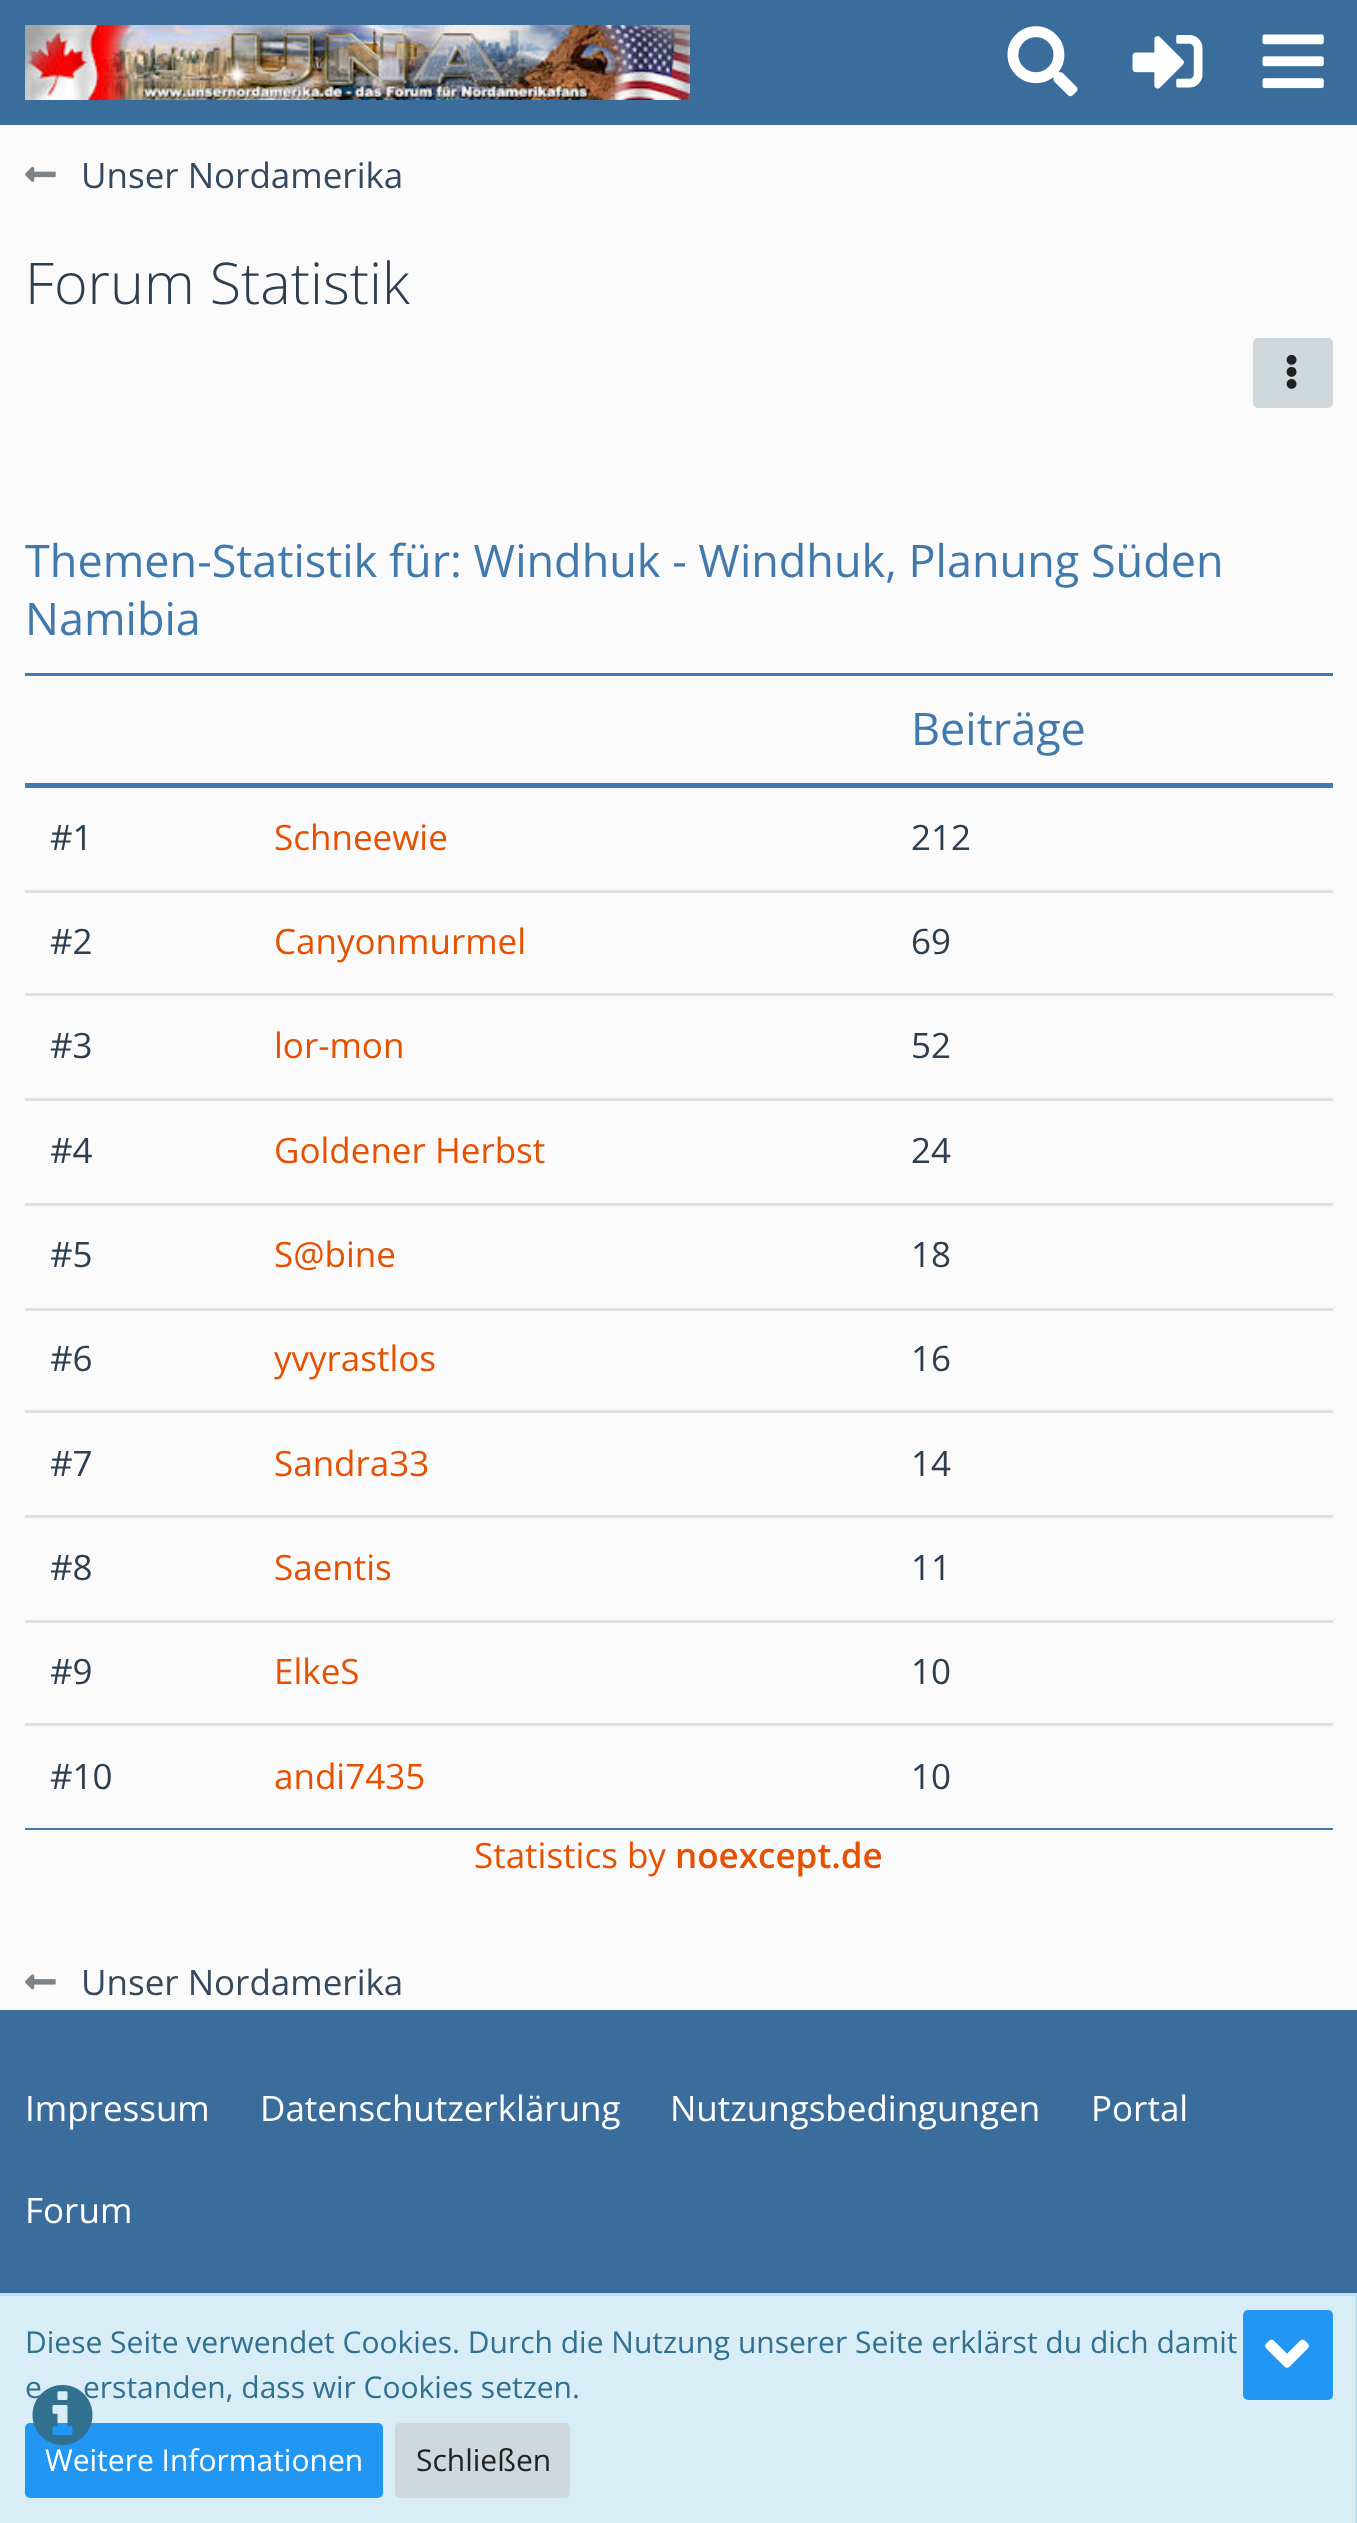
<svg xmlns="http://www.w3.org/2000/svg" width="1357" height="2523">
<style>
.a{font:35px Open Sans;fill:#34495e}
.b{font:300 57.5px Open Sans;fill:#2c3e50}
.c{font:45px Open Sans;fill:#4179ad}
.d{font:35px Open Sans;fill:#2c3e50}
.e{font:35px Open Sans;fill:#e65100}
.f{font:600 35px Open Sans;fill:#e65100}
.g{font:35px Open Sans;fill:#fff}
.h{font:30px Open Sans;fill:#31708f}
.i{font:30px Open Sans;fill:#fff}
.j{font:30px Open Sans;fill:#212121}
</style>
<rect width="100%" height="100%" fill="#fafafa"/>
<path fill="#3a6d9c" d="M0 0h1357v125H0z"/>
<image href="1.png" x="25" y="25" width="665" height="75"/>
<image href="2.png" x="1007" y="26" width="71" height="71"/>
<image href="3.png" x="1132" y="35" width="71" height="54"/>
<image href="4.png" x="1262" y="34" width="62" height="55"/>
<image href="5.png" x="25" y="166" width="31" height="16"/>
<rect fill="#cfd8dc" x="1253" y="338" width="80" height="70" rx="5"/>
<image href="6.png" x="1286" y="354" width="11" height="35"/>
<path fill="#4179ad" d="M25 673h1308v3H25z"/>
<path fill="#4179ad" d="M25 1828h1308v2H25z"/>
<path fill="#4179ad" d="M25 783h1308v5H25z"/>
<path fill="#e0e0e0" d="M25 890h1308v3H25z"/>
<path fill="#e0e0e0" d="M25 993h1308v3H25z"/>
<path fill="#e0e0e0" d="M25 1098h1308v3H25z"/>
<path fill="#e0e0e0" d="M25 1203h1308v3H25z"/>
<path fill="#e0e0e0" d="M25 1308h1308v3H25z"/>
<path fill="#e0e0e0" d="M25 1410h1308v3H25z"/>
<path fill="#e0e0e0" d="M25 1515h1308v3H25z"/>
<path fill="#e0e0e0" d="M25 1620h1308v3H25z"/>
<path fill="#e0e0e0" d="M25 1723h1308v3H25z"/>
<image href="7.png" x="25" y="1974" width="31" height="16"/>
<path fill="#3a6d9c" d="M0 2010h1357v283H0z"/>
<path fill="#d9edf7" d="M0 2296h1355v227H0z"/>
<path fill="#bcdff1" d="M0 2293h1357v3H0z"/>
<path fill="#bcdff1" d="M1355 2293h2v230H1355z"/>
<rect fill="#2196f3" x="25" y="2423" width="358" height="75" rx="5"/>
<rect fill="#cfd8dc" x="395" y="2423" width="175" height="75" rx="5"/>
<rect fill="#2196f3" x="1243" y="2310" width="90" height="90" rx="5"/>
<image href="9.png" x="1265" y="2339" width="44" height="29"/>
<text class="a" x="81" y="188">Unser Nordamerika</text>
<text class="b" x="25" y="304">Forum Statistik</text>
<text class="c" x="25" y="577">Themen-Statistik für: Windhuk - Windhuk, Planung Süden</text>
<text class="c" x="25" y="635">Namibia</text>
<text class="c" x="911" y="745">Beiträge</text>
<text class="d" x="50" y="850">#1</text>
<text class="e" x="274" y="850">Schneewie</text>
<text class="d" x="911" y="850">212</text>
<text class="d" x="50" y="954">#2</text>
<text class="e" x="274" y="954">Canyonmurmel</text>
<text class="d" x="911" y="954">69</text>
<text class="d" x="50" y="1058">#3</text>
<text class="e" x="274" y="1058">lor-mon</text>
<text class="d" x="911" y="1058">52</text>
<text class="d" x="50" y="1163">#4</text>
<text class="e" x="274" y="1163">Goldener Herbst</text>
<text class="d" x="911" y="1163">24</text>
<text class="d" x="50" y="1267">#5</text>
<text class="e" x="274" y="1267">S@bine</text>
<text class="d" x="911" y="1267">18</text>
<text class="d" x="50" y="1371">#6</text>
<text class="e" x="274" y="1371">yvyrastlos</text>
<text class="d" x="911" y="1371">16</text>
<text class="d" x="50" y="1476">#7</text>
<text class="e" x="274" y="1476">Sandra33</text>
<text class="d" x="911" y="1476">14</text>
<text class="d" x="50" y="1580">#8</text>
<text class="e" x="274" y="1580">Saentis</text>
<text class="d" x="911" y="1580">11</text>
<text class="d" x="50" y="1684">#9</text>
<text class="e" x="274" y="1684">ElkeS</text>
<text class="d" x="911" y="1684">10</text>
<text class="d" x="50" y="1789">#10</text>
<text class="e" x="274" y="1789">andi7435</text>
<text class="d" x="911" y="1789">10</text>
<text class="e" x="474" y="1868">Statistics by</text>
<text class="f" x="675" y="1868">noexcept.de</text>
<text class="a" x="81" y="1995">Unser Nordamerika</text>
<text class="g" x="25" y="2121">Impressum</text>
<text class="g" x="260" y="2121">Datenschutzerklärung</text>
<text class="g" x="670" y="2121">Nutzungsbedingungen</text>
<text class="g" x="1091" y="2121">Portal</text>
<text class="g" x="25" y="2223">Forum</text>
<text class="h" x="25" y="2353">Diese Seite verwendet Cookies. Durch die Nutzung unserer Seite erklärst du dich damit</text>
<text class="h" x="25" y="2398">e</text>
<text class="h" x="83" y="2398">erstanden, dass wir Cookies setzen.</text>
<text class="i" x="45" y="2471">Weitere Informationen</text>
<text class="j" x="416" y="2471">Schließen</text>
<image href="8.png" x="32" y="2385" width="61" height="60"/>
</svg>
